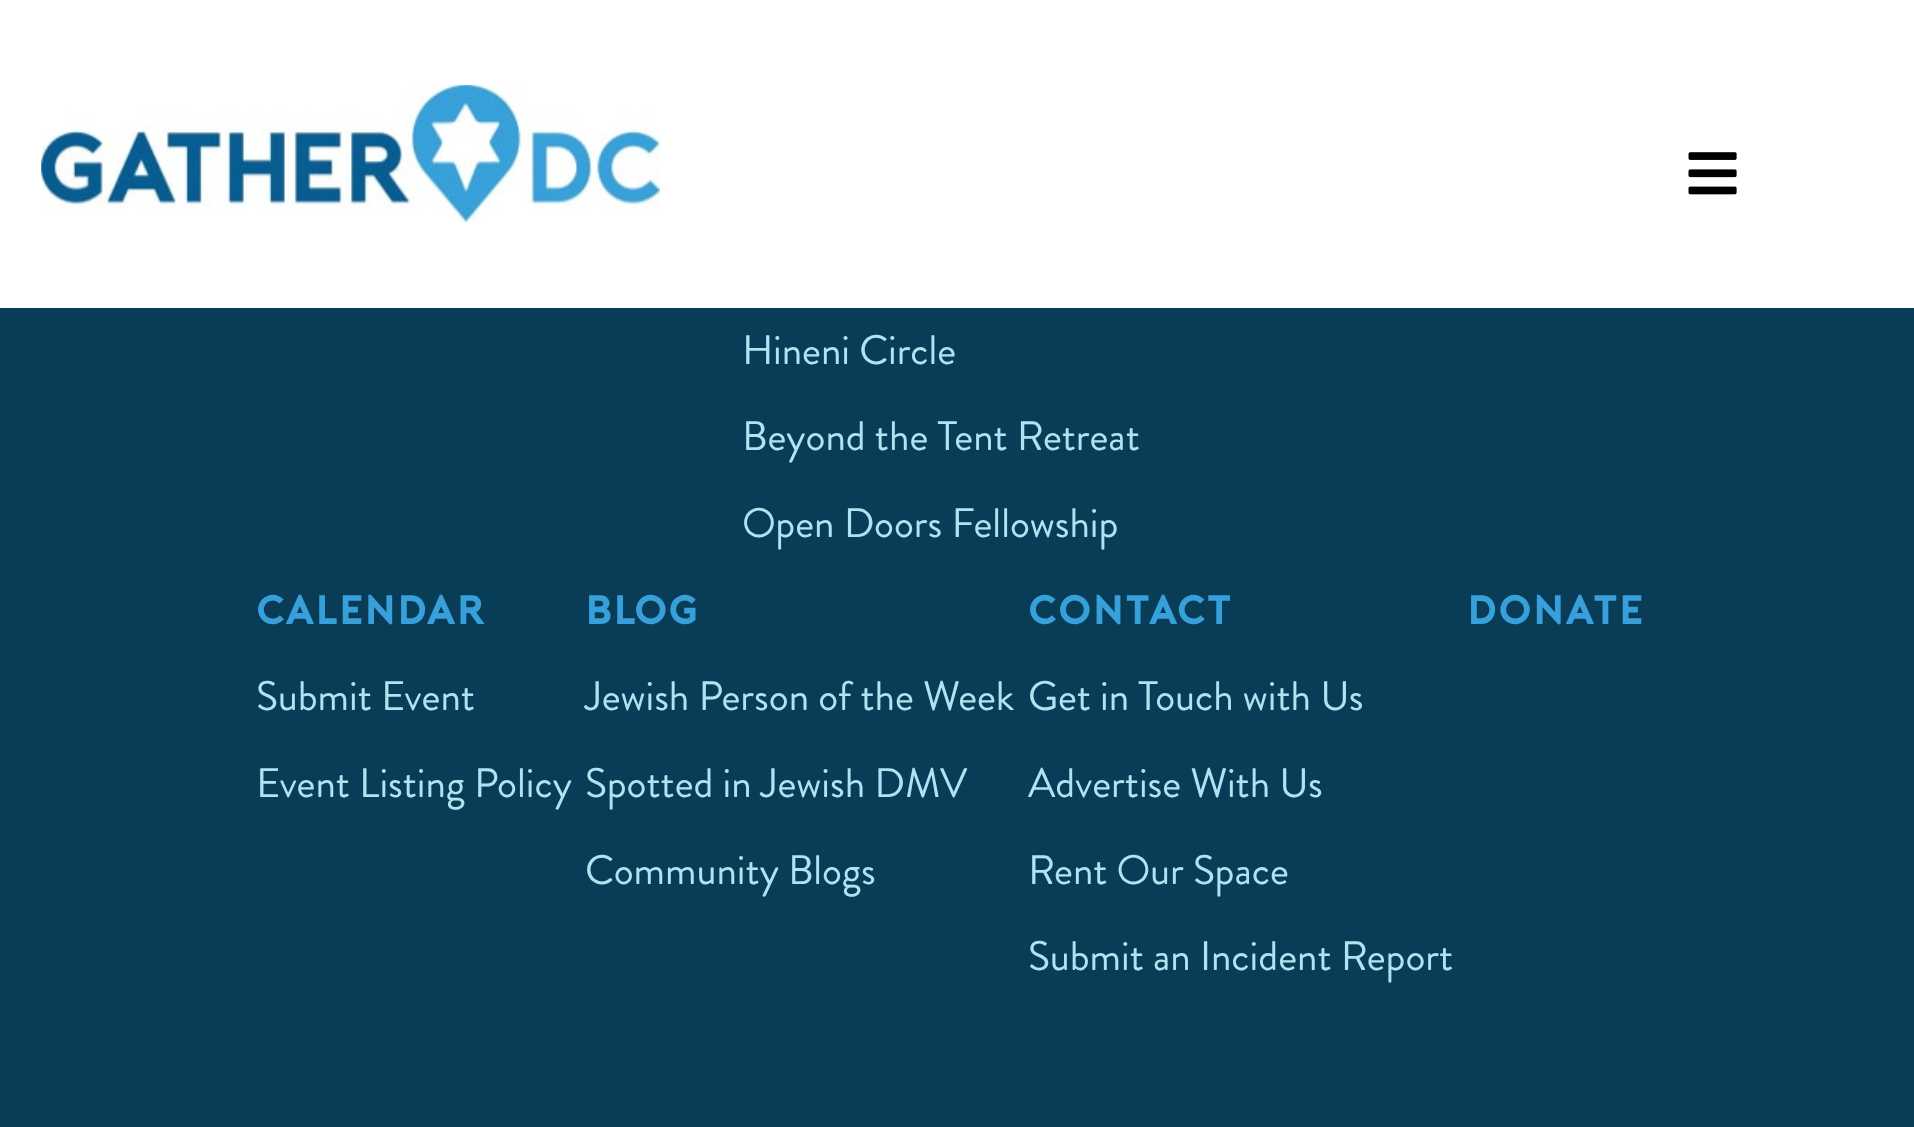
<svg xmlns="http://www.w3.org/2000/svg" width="1914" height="1127">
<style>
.a{font:41.25px Brandon Grotesque;fill:#b2e2f2}
.b{font:bold 41.25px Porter;fill:#37a0da}
</style>
<rect width="100%" height="100%" fill="#093c57"/>
<path fill="#fff" d="M0 0h1914v308H0z"/>
<image href="1.png" x="41" y="85" width="619" height="138"/>
<image href="2.png" x="1688" y="152" width="49" height="43"/>
<text class="a" x="742" y="364">Hineni Circle</text>
<text class="a" x="742" y="450">Beyond the Tent Retreat</text>
<text class="a" x="742" y="537">Open Doors Fellowship</text>
<text class="b" x="256" y="624">CALENDAR</text>
<text class="a" x="256" y="710">Submit Event</text>
<text class="a" x="256" y="797">Event Listing Policy</text>
<text class="b" x="585" y="624">BLOG</text>
<text class="a" x="585" y="710">Jewish Person of the Week</text>
<text class="a" x="585" y="797">Spotted in Jewish DMV</text>
<text class="a" x="585" y="884">Community Blogs</text>
<text class="b" x="1028" y="624">CONTACT</text>
<text class="a" x="1028" y="710">Get in Touch with Us</text>
<text class="a" x="1028" y="797">Advertise With Us</text>
<text class="a" x="1028" y="884">Rent Our Space</text>
<text class="a" x="1028" y="970">Submit an Incident Report</text>
<text class="b" x="1467" y="624">DONATE</text>
</svg>
